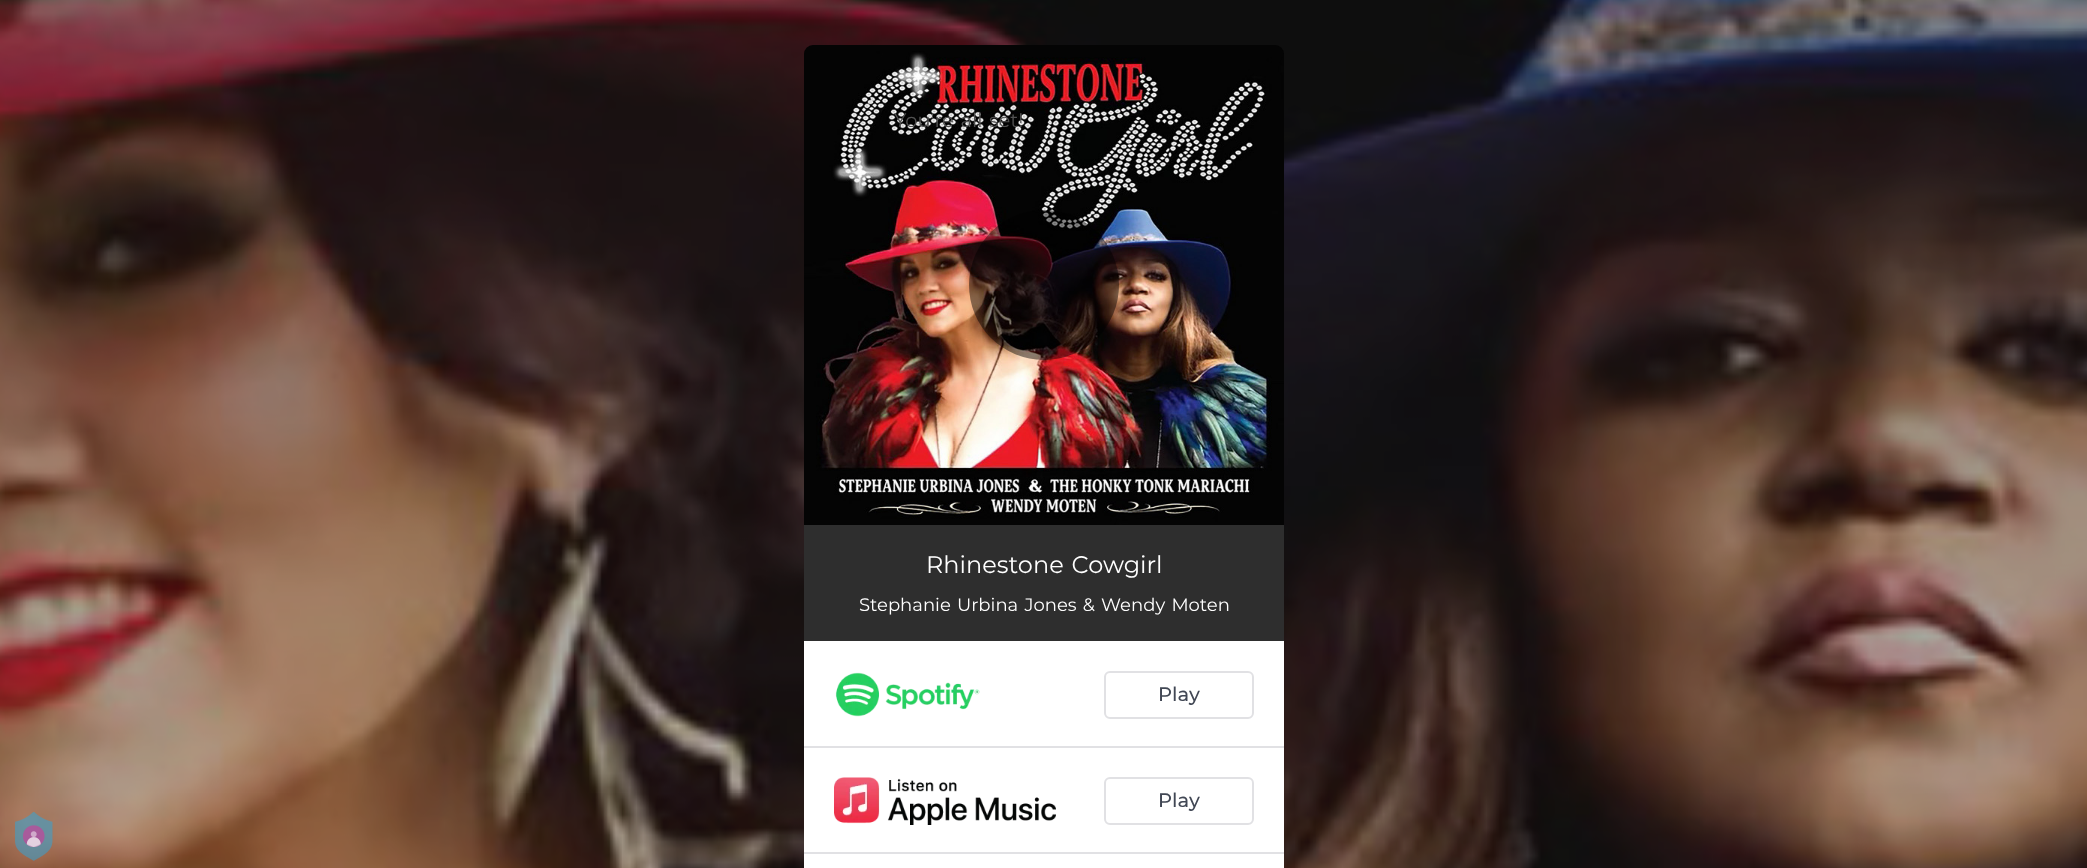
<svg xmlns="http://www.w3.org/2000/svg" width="2087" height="868">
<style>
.a{font:19.5px Montserrat;fill:#515151}
.b{font:24px Montserrat;fill:#fff}
.c{font:18px Montserrat;fill:#fff}
.d{font:500 19.5px Montserrat;fill:#414754}
</style>
<rect width="100%" height="100%" fill="#fff"/>
<image href="1.png" x="0" y="0" width="2087" height="868"/>
<image href="2.png" x="804" y="45" width="480" height="480"/>
<circle fill="#00000073" cx="1044" cy="285" r="75"/>
<path fill="#2e2e2e" d="M804 525h480v116H804z"/>
<path fill="#fff" d="M804 641h480v227H804z"/>
<path fill="#e1e1e4" d="M804 746h480v2H804z"/>
<image href="3.png" x="835" y="672" width="145" height="45"/>
<rect fill="none" stroke="#e1e1e4" stroke-width="2" x="1105" y="672" width="148" height="46" rx="5"/>
<path fill="#e1e1e4" d="M804 852h480v2H804z"/>
<image href="4.png" x="834" y="777" width="222" height="48"/>
<rect fill="none" stroke="#e1e1e4" stroke-width="2" x="1105" y="778" width="148" height="46" rx="5"/>
<image href="5.png" x="15" y="812" width="38" height="49"/>
<text class="a" x="894" y="127" word-spacing="1.5">You're all set!</text>
<text class="b" x="926" y="573" word-spacing="1.5">Rhinestone Cowgirl</text>
<text class="c" x="859" y="611" word-spacing="1.5">Stephanie Urbina Jones &amp; Wendy Moten</text>
<text class="d" x="1158" y="701">Play</text>
<text class="d" x="1158" y="807">Play</text>
</svg>
